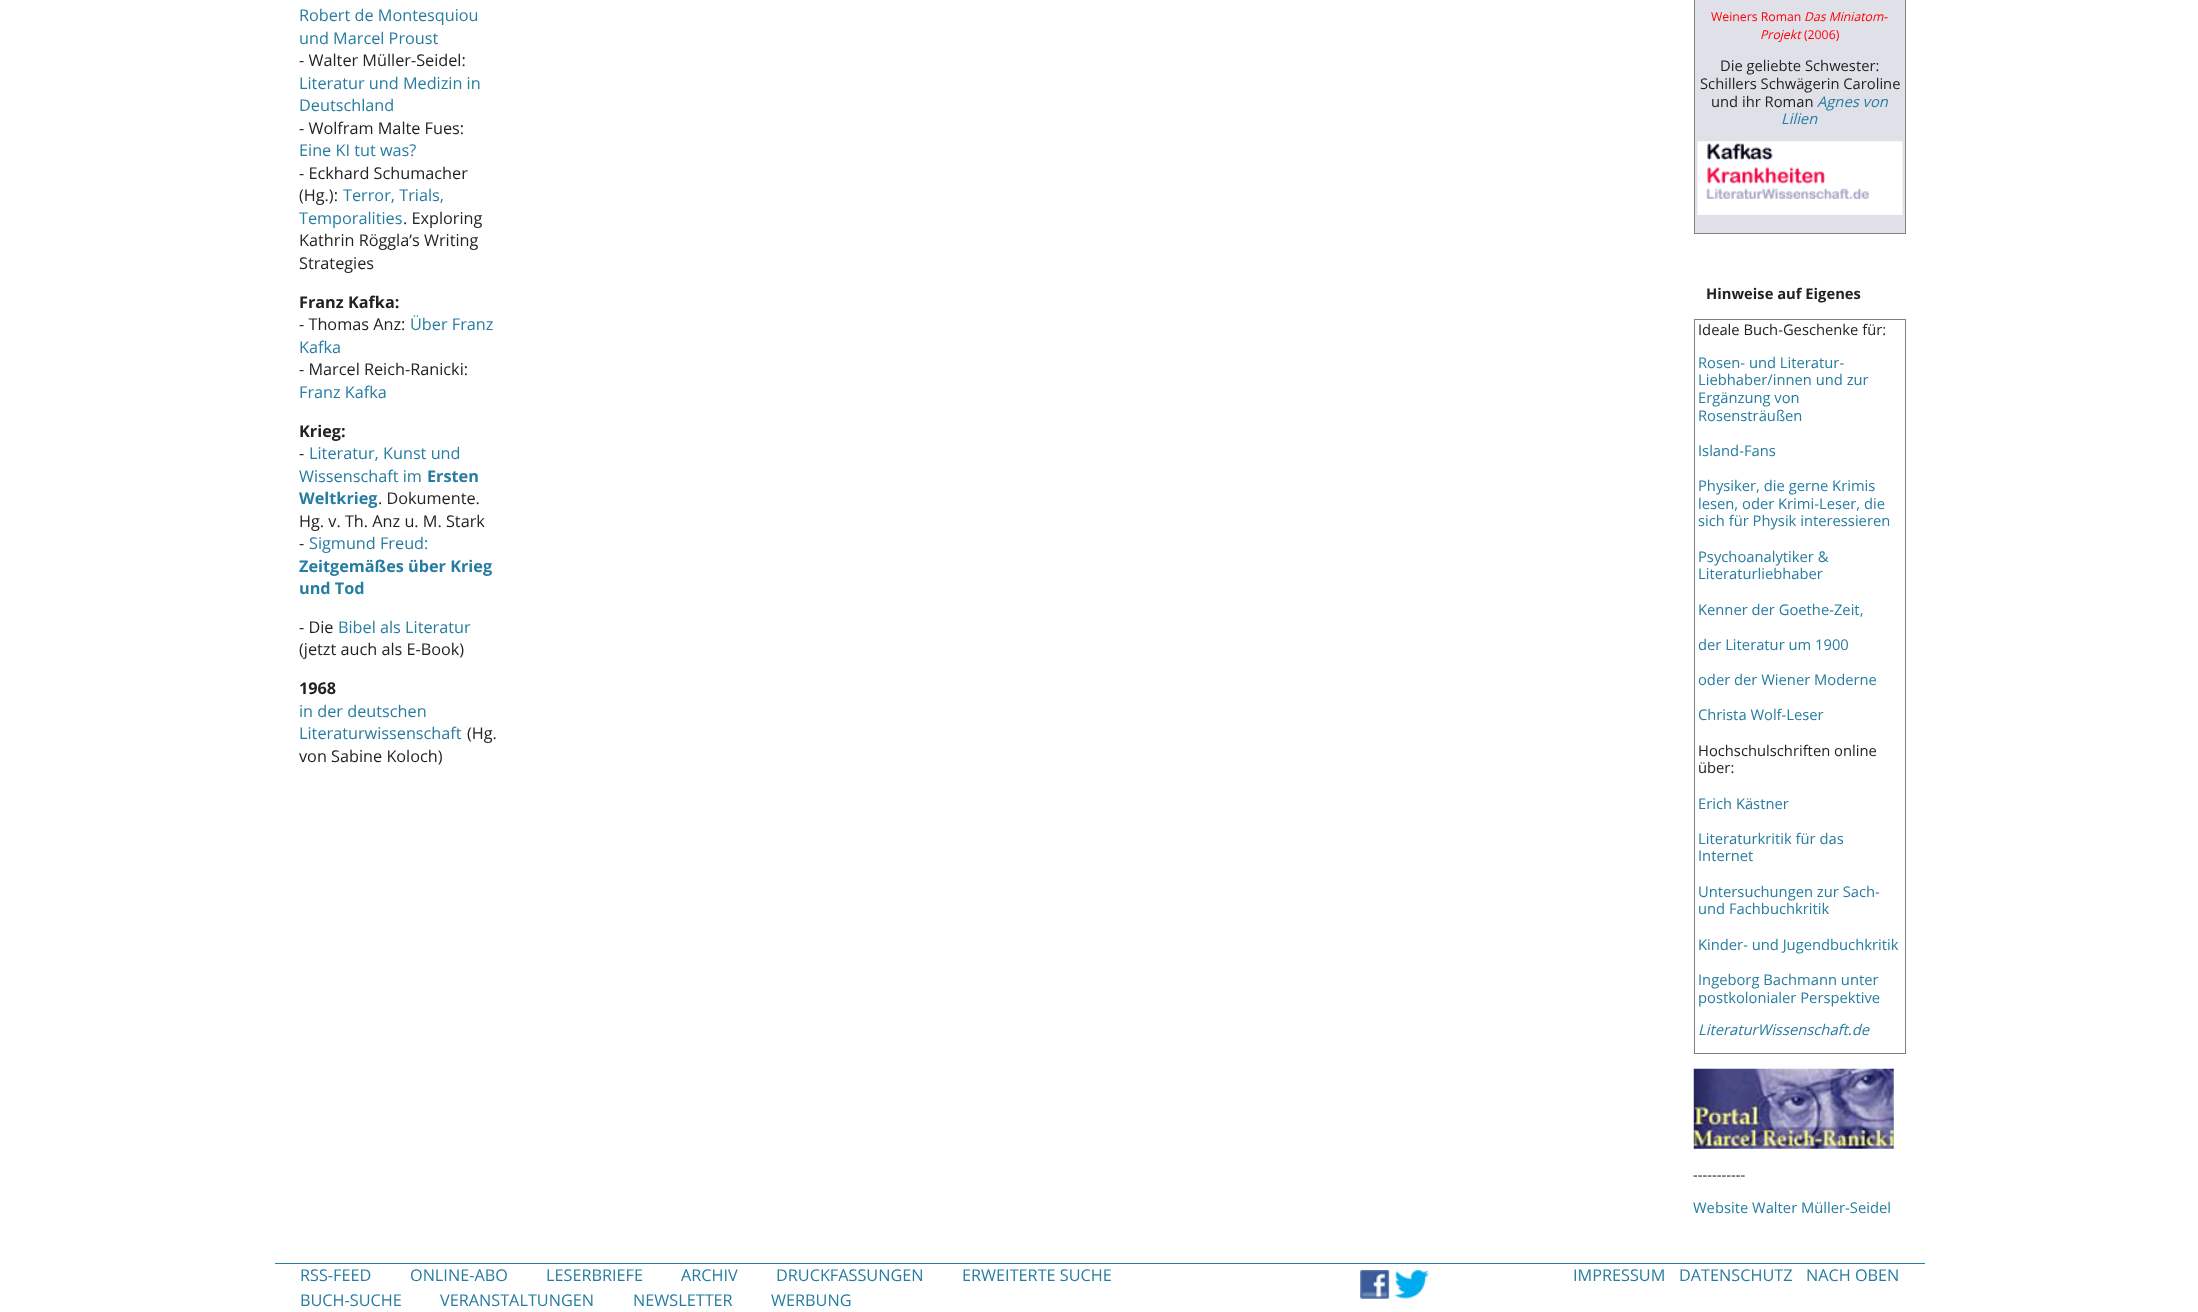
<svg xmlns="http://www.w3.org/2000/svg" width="2198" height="1312">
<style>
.a{font:16.25px Open Sans;fill:#277ca1}
.b{font:16.25px Open Sans;fill:#222}
.c{font:bold 16.25px Open Sans;fill:#222}
.d{font:bold 16.25px Open Sans;fill:#277ca1}
.e{font:12.25px Open Sans;fill:#f00}
.f{font:italic 12.25px Open Sans;fill:#f00}
.g{font:14.75px Open Sans;fill:#222}
.h{font:italic 14.75px Open Sans;fill:#277ca1}
.i{font:bold 14.75px Open Sans;fill:#222}
.j{font:14.75px Open Sans;fill:#277ca1}
</style>
<rect width="100%" height="100%" fill="#fff"/>
<path fill="#e0e0e9" d="M1695 0h210v233H1695z"/>
<path fill="#808080" d="M1905 0h1v234H1905z"/>
<path fill="#808080" d="M1694 233h212v1H1694z"/>
<path fill="#808080" d="M1694 0h1v234H1694z"/>
<image href="1.png" x="1697" y="141" width="206" height="74"/>
<path fill="#808080" d="M1694 319h212v1H1694z"/>
<path fill="#808080" d="M1905 319h1v735H1905z"/>
<path fill="#808080" d="M1694 1053h212v1H1694z"/>
<path fill="#808080" d="M1694 319h1v735H1694z"/>
<image href="2.png" x="1693" y="1068" width="201" height="81"/>
<path fill="#277ca1" d="M275 1263h1650v1H275z"/>
<image href="3.png" x="1360" y="1270" width="30" height="29"/>
<image href="4.png" x="1394" y="1270" width="35" height="29"/>
<text class="a" x="299" y="21">Robert de Montesquiou</text>
<text class="a" x="299" y="44">und Marcel Proust</text>
<text class="b" x="299" y="66">- Walter Müller-Seidel:</text>
<text class="a" x="299" y="89">Literatur und Medizin in</text>
<text class="a" x="299" y="111">Deutschland</text>
<text class="b" x="299" y="134">- Wolfram Malte Fues:</text>
<text class="a" x="299" y="156">Eine KI tut was?</text>
<text class="b" x="299" y="179">- Eckhard Schumacher</text>
<text class="b" x="299" y="201">(Hg.):</text>
<text class="a" x="343" y="201">Terror, Trials,</text>
<text class="a" x="299" y="224">Temporalities</text>
<text class="b" x="403" y="224">. Exploring</text>
<text class="b" x="299" y="246">Kathrin Röggla’s Writing</text>
<text class="b" x="299" y="269">Strategies</text>
<text class="c" x="299" y="308">Franz Kafka:</text>
<text class="b" x="299" y="330">- Thomas Anz:</text>
<text class="a" x="410" y="330">Über Franz</text>
<text class="a" x="299" y="353">Kafka</text>
<text class="b" x="299" y="375">- Marcel Reich-Ranicki:</text>
<text class="a" x="299" y="398">Franz Kafka</text>
<text class="c" x="299" y="437">Krieg:</text>
<text class="b" x="299" y="459">-</text>
<text class="a" x="309" y="459">Literatur, Kunst und</text>
<text class="a" x="299" y="482">Wissenschaft im</text>
<text class="d" x="427" y="482">Ersten</text>
<text class="d" x="299" y="504">Weltkrieg</text>
<text class="b" x="378" y="504">. Dokumente.</text>
<text class="b" x="299" y="527">Hg. v. Th. Anz u. M. Stark</text>
<text class="b" x="299" y="549">-</text>
<text class="a" x="309" y="549">Sigmund Freud:</text>
<text class="d" x="299" y="572">Zeitgemäßes über Krieg</text>
<text class="d" x="299" y="594">und Tod</text>
<text class="b" x="299" y="633">- Die</text>
<text class="a" x="338" y="633">Bibel als Literatur</text>
<text class="b" x="299" y="655">(jetzt auch als E-Book)</text>
<text class="c" x="299" y="694">1968</text>
<text class="a" x="299" y="717">in der deutschen</text>
<text class="a" x="299" y="739">Literaturwissenschaft</text>
<text class="b" x="467" y="739">(Hg.</text>
<text class="b" x="299" y="762">von Sabine Koloch)</text>
<text class="e" x="1711" y="21">Weiners Roman</text>
<text class="f" x="1804" y="21">Das Miniatom-</text>
<text class="f" x="1760" y="39">Projekt</text>
<text class="e" x="1804" y="39">(2006)</text>
<text class="g" x="1720" y="71">Die geliebte Schwester:</text>
<text class="g" x="1700" y="89">Schillers Schwägerin Caroline</text>
<text class="g" x="1711" y="107">und ihr Roman</text>
<text class="h" x="1817" y="107">Agnes von</text>
<text class="h" x="1781" y="124">Lilien</text>
<text class="i" x="1706" y="299">Hinweise auf Eigenes</text>
<text class="g" x="1698" y="335">Ideale Buch-Geschenke für:</text>
<text class="j" x="1698" y="368">Rosen- und Literatur-</text>
<text class="j" x="1698" y="385">Liebhaber/innen und zur</text>
<text class="j" x="1698" y="403">Ergänzung von</text>
<text class="j" x="1698" y="421">Rosensträußen</text>
<text class="j" x="1698" y="456">Island-Fans</text>
<text class="j" x="1698" y="491">Physiker, die gerne Krimis</text>
<text class="j" x="1698" y="509">lesen, oder Krimi-Leser, die</text>
<text class="j" x="1698" y="526">sich für Physik interessieren</text>
<text class="j" x="1698" y="562">Psychoanalytiker &amp;</text>
<text class="j" x="1698" y="579">Literaturliebhaber</text>
<text class="j" x="1698" y="615">Kenner der Goethe-Zeit,</text>
<text class="j" x="1698" y="650">der Literatur um 1900</text>
<text class="j" x="1698" y="685">oder der Wiener Moderne</text>
<text class="j" x="1698" y="720">Christa Wolf-Leser</text>
<text class="g" x="1698" y="756">Hochschulschriften online</text>
<text class="g" x="1698" y="773">über:</text>
<text class="j" x="1698" y="809">Erich Kästner</text>
<text class="j" x="1698" y="844">Literaturkritik für das</text>
<text class="j" x="1698" y="861">Internet</text>
<text class="j" x="1698" y="897">Untersuchungen zur Sach-</text>
<text class="j" x="1698" y="914">und Fachbuchkritik</text>
<text class="j" x="1698" y="950">Kinder- und Jugendbuchkritik</text>
<text class="j" x="1698" y="985">Ingeborg Bachmann unter</text>
<text class="j" x="1698" y="1003">postkolonialer Perspektive</text>
<text class="h" x="1698" y="1035">LiteraturWissenschaft.de</text>
<text class="g" x="1693" y="1180">-----------</text>
<text class="j" x="1693" y="1213">Website Walter Müller-Seidel</text>
<text class="a" x="300" y="1281">RSS-FEED</text>
<text class="a" x="410" y="1281">ONLINE-ABO</text>
<text class="a" x="546" y="1281">LESERBRIEFE</text>
<text class="a" x="681" y="1281">ARCHIV</text>
<text class="a" x="776" y="1281">DRUCKFASSUNGEN</text>
<text class="a" x="962" y="1281">ERWEITERTE SUCHE</text>
<text class="a" x="300" y="1306">BUCH-SUCHE</text>
<text class="a" x="440" y="1306">VERANSTALTUNGEN</text>
<text class="a" x="633" y="1306">NEWSLETTER</text>
<text class="a" x="771" y="1306">WERBUNG</text>
<text class="a" x="1573" y="1281">IMPRESSUM</text>
<text class="a" x="1679" y="1281">DATENSCHUTZ</text>
<text class="a" x="1806" y="1281">NACH OBEN</text>
</svg>
